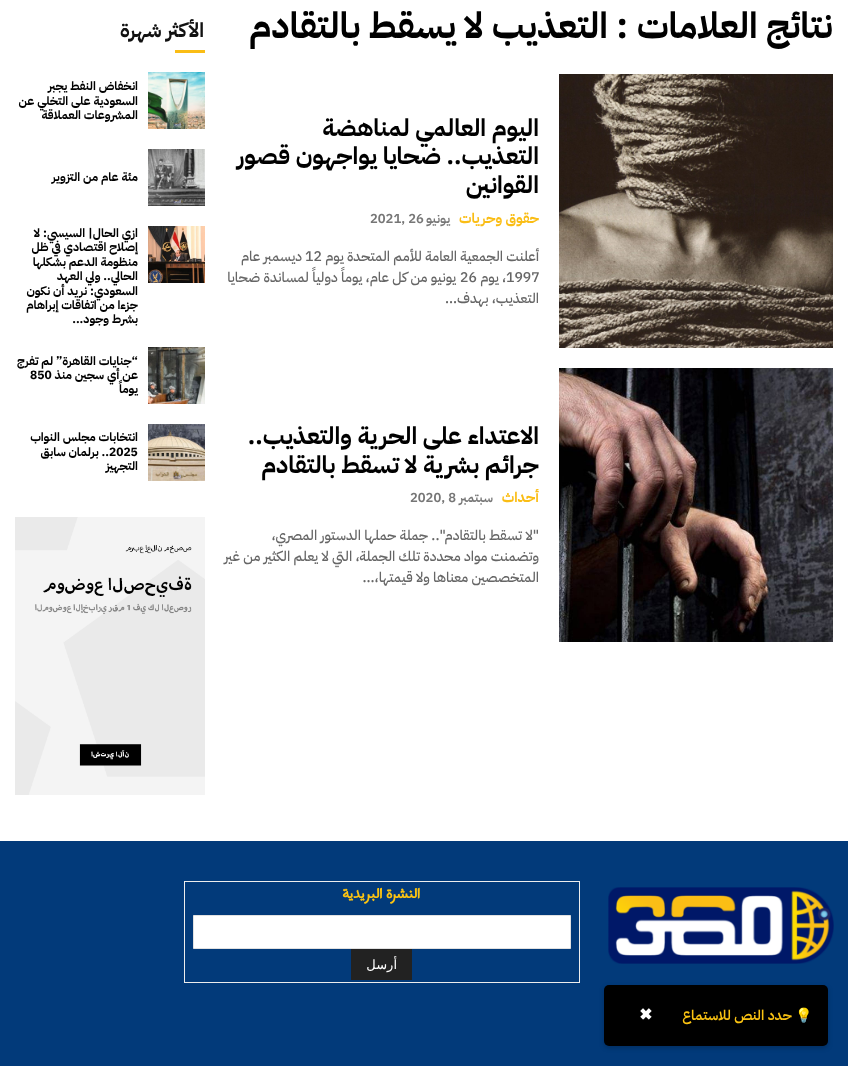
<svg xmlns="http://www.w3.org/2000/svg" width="848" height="1066">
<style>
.a{font:bold 36px IBM Plex Sans Arabic;direction:rtl;fill:#000}
.b{font:bold 24px IBM Plex Sans Arabic;direction:rtl;fill:#000}
.c{font:bold 14px IBM Plex Sans Arabic;direction:rtl;fill:#fabd15}
.d{font:600 13px IBM Plex Sans Arabic;direction:rtl;fill:#767676}
.e{font:600 13px IBM Plex Sans Arabic;fill:#767676}
.f{font:500 14px IBM Plex Sans Arabic;direction:rtl;fill:#666}
.g{font:500 14px IBM Plex Sans Arabic;fill:#666}
.h{font:bold 20px IBM Plex Sans Arabic;direction:rtl;fill:#111}
.i{font:bold 12px IBM Plex Sans Arabic;direction:rtl;fill:#000}
.j{font:bold 12px IBM Plex Sans Arabic;fill:#000}
.k{font:bold 18px Harmattan;direction:rtl;fill:#fbc312}
.l{font:13px DejaVu Sans;direction:rtl;fill:#fff}
.m{font:bold 14px Noto Color Emoji;direction:rtl;fill:#fbc312}
.n{font:600 14px IBM Plex Sans Arabic;direction:rtl;fill:#fbc312}
.o{font:bold 16px DejaVu Sans;fill:#fff}
</style>
<rect width="100%" height="100%" fill="#fff"/>
<image href="1.png" x="559" y="74" width="274" height="274"/>
<image href="2.png" x="559" y="368" width="274" height="274"/>
<path fill="#fabd15" d="M175 50h30v3H175z"/>
<image href="3.png" x="148" y="72" width="57" height="57"/>
<image href="4.png" x="148" y="149" width="57" height="57"/>
<image href="5.png" x="148" y="226" width="57" height="57"/>
<image href="6.png" x="148" y="347" width="57" height="57"/>
<image href="7.png" x="148" y="424" width="57" height="57"/>
<image href="8.png" x="15" y="517" width="190" height="278"/>
<path fill="#023a7a" d="M0 841h848v225H0z"/>
<image href="9.png" x="608" y="887" width="226" height="77"/>
<path fill="#ededed" d="M184 881h396v1H184z"/>
<path fill="#ededed" d="M579 881h1v102H579z"/>
<path fill="#ededed" d="M184 982h396v1H184z"/>
<path fill="#ededed" d="M184 881h1v102H184z"/>
<path fill="#fff" stroke="#e1e1e1" d="M193.5 915.5h377v33H193.5z"/>
<path fill="#222" d="M351 949h61v31H351z"/>
<rect fill="#00000033" filter="blur(2.5px)" x="604" y="987" width="224" height="61" rx="5"/>
<rect fill="#000" x="604" y="985" width="224" height="61" rx="5"/>
<text class="a" x="833" y="38">نتائج العلامات :</text>
<text class="a" x="608" y="38">التعذيب لا يسقط بالتقادم</text>
<text class="b" x="539" y="136">اليوم العالمي لمناهضة</text>
<text class="b" x="539" y="164">التعذيب.. ضحايا يواجهون قصور</text>
<text class="b" x="539" y="193">القوانين</text>
<text class="c" x="539" y="223">حقوق وحريات</text>
<text class="d" x="450" y="223">يونيو</text>
<text class="e" x="370" y="223">2021, 26</text>
<text class="f" x="539" y="261">أعلنت الجمعية العامة للأمم المتحدة يوم</text>
<text class="g" x="305" y="261">12</text>
<text class="f" x="302" y="261">ديسمبر عام</text>
<text class="g" x="506" y="282">1997</text>
<text class="f" x="506" y="282">، يوم</text>
<text class="g" x="460" y="282">26</text>
<text class="f" x="456" y="282">يونيو من كل عام، يوماً دولياً لمساندة ضحايا</text>
<text class="f" x="539" y="303">التعذيب، بهدف...</text>
<text class="b" x="539" y="444">الاعتداء على الحرية والتعذيب..</text>
<text class="b" x="539" y="473">جرائم بشرية لا تسقط بالتقادم</text>
<text class="c" x="539" y="502">أحداث</text>
<text class="d" x="493" y="502">سبتمبر</text>
<text class="e" x="410" y="502">2020, 8</text>
<text class="f" x="539" y="540">"لا تسقط بالتقادم".. جملة حملها الدستور المصري،</text>
<text class="f" x="539" y="561">وتضمنت مواد محددة تلك الجملة، التي لا يعلم الكثير من غير</text>
<text class="f" x="539" y="582">المتخصصين معناها ولا قيمتها،...</text>
<text class="h" x="204" y="37">الأكثر شهرة</text>
<text class="i" x="138" y="90">انخفاض النفط يجبر</text>
<text class="i" x="138" y="105">السعودية على التخلي عن</text>
<text class="i" x="138" y="119">المشروعات العملاقة</text>
<text class="i" x="138" y="181">مئة عام من التزوير</text>
<text class="i" x="138" y="237">ازي الحال| السيسي: لا</text>
<text class="i" x="138" y="251">إصلاح اقتصادي في ظل</text>
<text class="i" x="138" y="266">منظومة الدعم بشكلها</text>
<text class="i" x="138" y="280">الحالي.. ولي العهد</text>
<text class="i" x="138" y="295">السعودي: نريد أن نكون</text>
<text class="i" x="138" y="309">جزءا من اتفاقات إبراهام</text>
<text class="i" x="138" y="323">بشرط وجود...</text>
<text class="i" x="138" y="365">“جنايات القاهرة” لم تفرج</text>
<text class="i" x="138" y="379">عن أي سجين منذ</text>
<text class="j" x="30" y="379">850</text>
<text class="i" x="138" y="393">يوماً</text>
<text class="i" x="138" y="441">انتخابات مجلس النواب</text>
<text class="j" x="109" y="456">2025</text>
<text class="i" x="109" y="456">.. برلمان سابق</text>
<text class="i" x="138" y="470">التجهيز</text>
<text class="k" x="420" y="898">النشرة البريدية</text>
<text class="l" x="397" y="969">أرسل</text>
<text class="m" x="813" y="1020">💡</text>
<text class="n" x="792" y="1020">حدد النص للاستماع</text>
<text class="o" x="639" y="1020">✖</text>
</svg>
